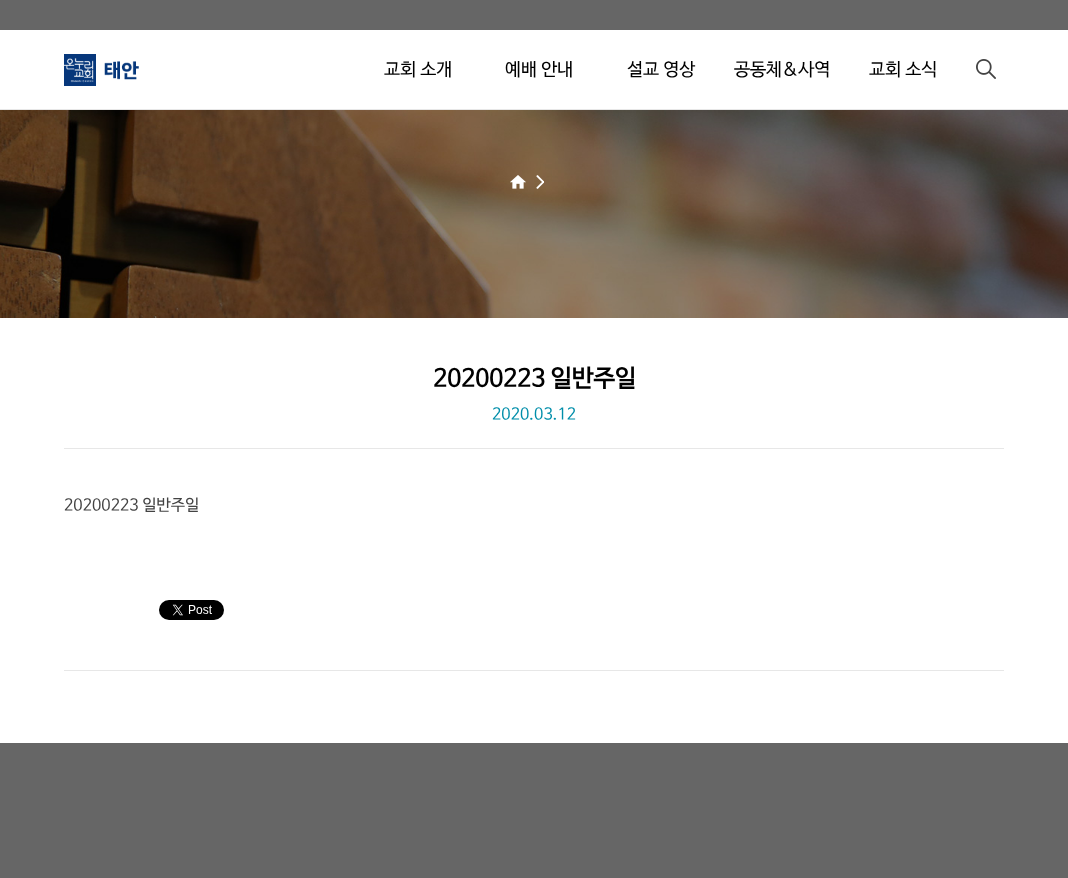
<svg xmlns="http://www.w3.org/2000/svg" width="1068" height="878">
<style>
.a{font:18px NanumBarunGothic;fill:#000}
.b{font:bold 24px NanumBarunGothic;fill:#000}
.c{font:16px NanumBarunGothic;fill:#008eaa}
.d{font:16px NanumBarunGothic;fill:#434343}
</style>
<rect width="100%" height="100%" fill="#666"/>
<path fill="#fff" d="M0 30h1068v713H0z"/>
<image href="1.png" x="64" y="54" width="75" height="32"/>
<image href="2.png" x="976" y="59" width="20" height="20"/>
<path fill="#e7e7e7" d="M0 109h1068v1H0z"/>
<image href="3.png" x="0" y="110" width="1068" height="208"/>
<image href="4.png" x="510" y="175" width="16" height="14"/>
<image href="5.png" x="536" y="175" width="8" height="14"/>
<path fill="#e7e7e7" d="M64 448h940v1H64z"/>
<image href="6.png" x="159" y="600" width="65" height="20"/>
<path fill="#e7e7e7" d="M64 670h940v1H64z"/>
<text class="a" x="384" y="75">교회 소개</text>
<text class="a" x="505" y="75">예배 안내</text>
<text class="a" x="627" y="75">설교 영상</text>
<text class="a" x="734" y="75">공동체&amp;사역</text>
<text class="a" x="869" y="75">교회 소식</text>
<text class="b" x="433" y="386">20200223 일반주일</text>
<text class="c" x="492" y="419">2020.03.12</text>
<text class="d" x="64" y="510">20200223 일반주일</text>
</svg>
